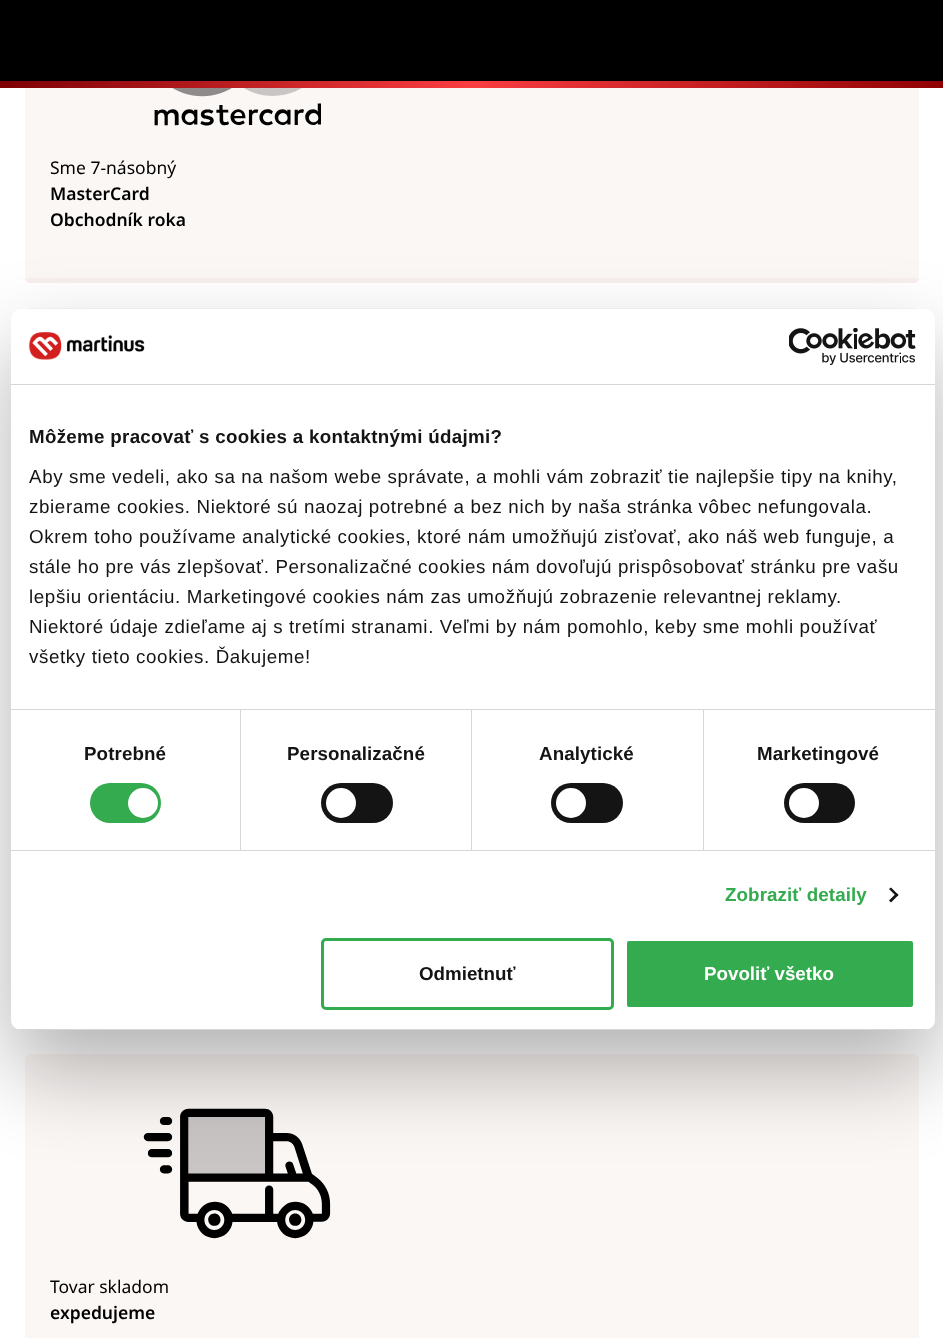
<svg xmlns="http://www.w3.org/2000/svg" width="943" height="1338">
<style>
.a{font:17.5px Noto Sans;fill:#000}
.b{font:600 17.5px Noto Sans;fill:#000}
.c{font:bold 18.75px Liberation Sans;letter-spacing:0.3px;fill:#141414}
.d{font:18.75px Liberation Sans;letter-spacing:0.62px;fill:#141414}
.e{font:bold 18.75px Liberation Sans;letter-spacing:0.1px;fill:#141414}
.f{font:bold 18.75px Liberation Sans;letter-spacing:0.1px;fill:#33ab4e}
.g{font:bold 18.75px Liberation Sans;fill:#141414}
.h{font:bold 18.75px Liberation Sans;fill:#fff}
</style>
<defs>
<linearGradient id="g1" gradientUnits="userSpaceOnUse" x1="0" y1="84" x2="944" y2="84"><stop offset="0" stop-color="#7e0003"/><stop offset="0.5" stop-color="#fa3d41"/><stop offset="1" stop-color="#8f0003"/></linearGradient>
<clipPath id="clip1"><rect x="11" y="309" width="924" height="721" rx="10"/></clipPath>
</defs>
<rect width="100%" height="100%" fill="#fff"/>
<rect fill="#fbf7f5" x="25" y="-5" width="894" height="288" rx="5"/>
<path fill="#000" d="M0 0h943v81H0z"/>
<path fill="url(#g1)" d="M0 81h943v7H0z"/>
<image href="1.png" x="154" y="88" width="167" height="38"/>
<path fill="#f7efeb" d="M25 278h894c0 3-2 5-5 5h-884c-3 0-5-2-5-5z"/>
<rect fill="#fbf7f5" x="25" y="308" width="894" height="347" rx="5"/>
<rect fill="#fbf7f5" x="25" y="1054" width="894" height="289" rx="5"/>
<image href="2.png" x="143" y="1108" width="188" height="131"/>
<rect fill="#0000004d" filter="blur(42.5px)" x="11" y="349" width="924" height="721" rx="10"/>
<rect fill="#fff" x="11" y="309" width="924" height="721" rx="10"/>
<path fill="#d6d6d6" d="M11 384h924v1H11z"/>
<image href="3.png" x="29" y="332" width="116" height="28"/>
<image href="4.png" x="789" y="328" width="127" height="37"/>
<path fill="#d6d6d6" d="M11 709h924v1H11z"/>
<path fill="#d6d6d6" d="M11 850h924v1H11z"/>
<path fill="#d6d6d6" d="M240 710h1v140H240z"/>
<rect fill="#33ab4e" x="90" y="783" width="71" height="40" rx="20"/>
<circle fill="#fff" cx="143" cy="803" r="15"/>
<path fill="#d6d6d6" d="M471 710h1v140H471z"/>
<rect fill="#141414" x="321" y="783" width="72" height="40" rx="20"/>
<circle fill="#fff" cx="341" cy="803" r="15"/>
<path fill="#d6d6d6" d="M703 710h1v140H703z"/>
<rect fill="#141414" x="551" y="783" width="72" height="40" rx="20"/>
<circle fill="#fff" cx="571" cy="803" r="15"/>
<rect fill="#141414" x="784" y="783" width="71" height="40" rx="20"/>
<circle fill="#fff" cx="804" cy="803" r="15"/>
<path fill="#141414" d="M891 887.5l7.5 7.5l-2 1.5l-7.5-7.5z"/>
<path fill="#141414" d="M896.5 893l2 2l-7.5 7.5l-2-2z"/>
<g clip-path="url(#clip1)">
<path fill="#d6d6d6" d="M11 1029h924v1H11z"/>
</g>
<rect fill="none" stroke="#33ab4e" stroke-width="3" x="322.5" y="939.5" width="290" height="69" rx="3.5"/>
<rect fill="#33ab4e" stroke="#fff" stroke-width="3" x="625.5" y="939.5" width="289" height="69" rx="3.5"/>
<text class="a" x="50" y="174">Sme 7-násobný</text>
<text class="b" x="50" y="200">MasterCard</text>
<text class="b" x="50" y="226">Obchodník roka</text>
<text class="a" x="50" y="1293">Tovar skladom</text>
<text class="b" x="50" y="1319">expedujeme</text>
<text class="c" x="29" y="443">Môžeme pracovať s cookies a kontaktnými údajmi?</text>
<text class="d" x="29" y="483">Aby sme vedeli, ako sa na našom webe správate, a mohli vám zobraziť tie najlepšie tipy na knihy,</text>
<text class="d" x="29" y="513">zbierame cookies. Niektoré sú naozaj potrebné a bez nich by naša stránka vôbec nefungovala.</text>
<text class="d" x="29" y="543">Okrem toho používame analytické cookies, ktoré nám umožňujú zisťovať, ako náš web funguje, a</text>
<text class="d" x="29" y="573">stále ho pre vás zlepšovať. Personalizačné cookies nám dovoľujú prispôsobovať stránku pre vašu</text>
<text class="d" x="29" y="603">lepšiu orientáciu. Marketingové cookies nám zas umožňujú zobrazenie relevantnej reklamy.</text>
<text class="d" x="29" y="633">Niektoré údaje zdieľame aj s tretími stranami. Veľmi by nám pomohlo, keby sme mohli používať</text>
<text class="d" x="29" y="663">všetky tieto cookies. Ďakujeme!</text>
<text class="e" x="84" y="760">Potrebné</text>
<text class="e" x="287" y="760">Personalizačné</text>
<text class="e" x="539" y="760">Analytické</text>
<text class="e" x="757" y="760">Marketingové</text>
<text class="f" x="725" y="901">Zobraziť detaily</text>
<text class="g" x="419" y="980">Odmietnuť</text>
<text class="h" x="704" y="980">Povoliť všetko</text>
</svg>
